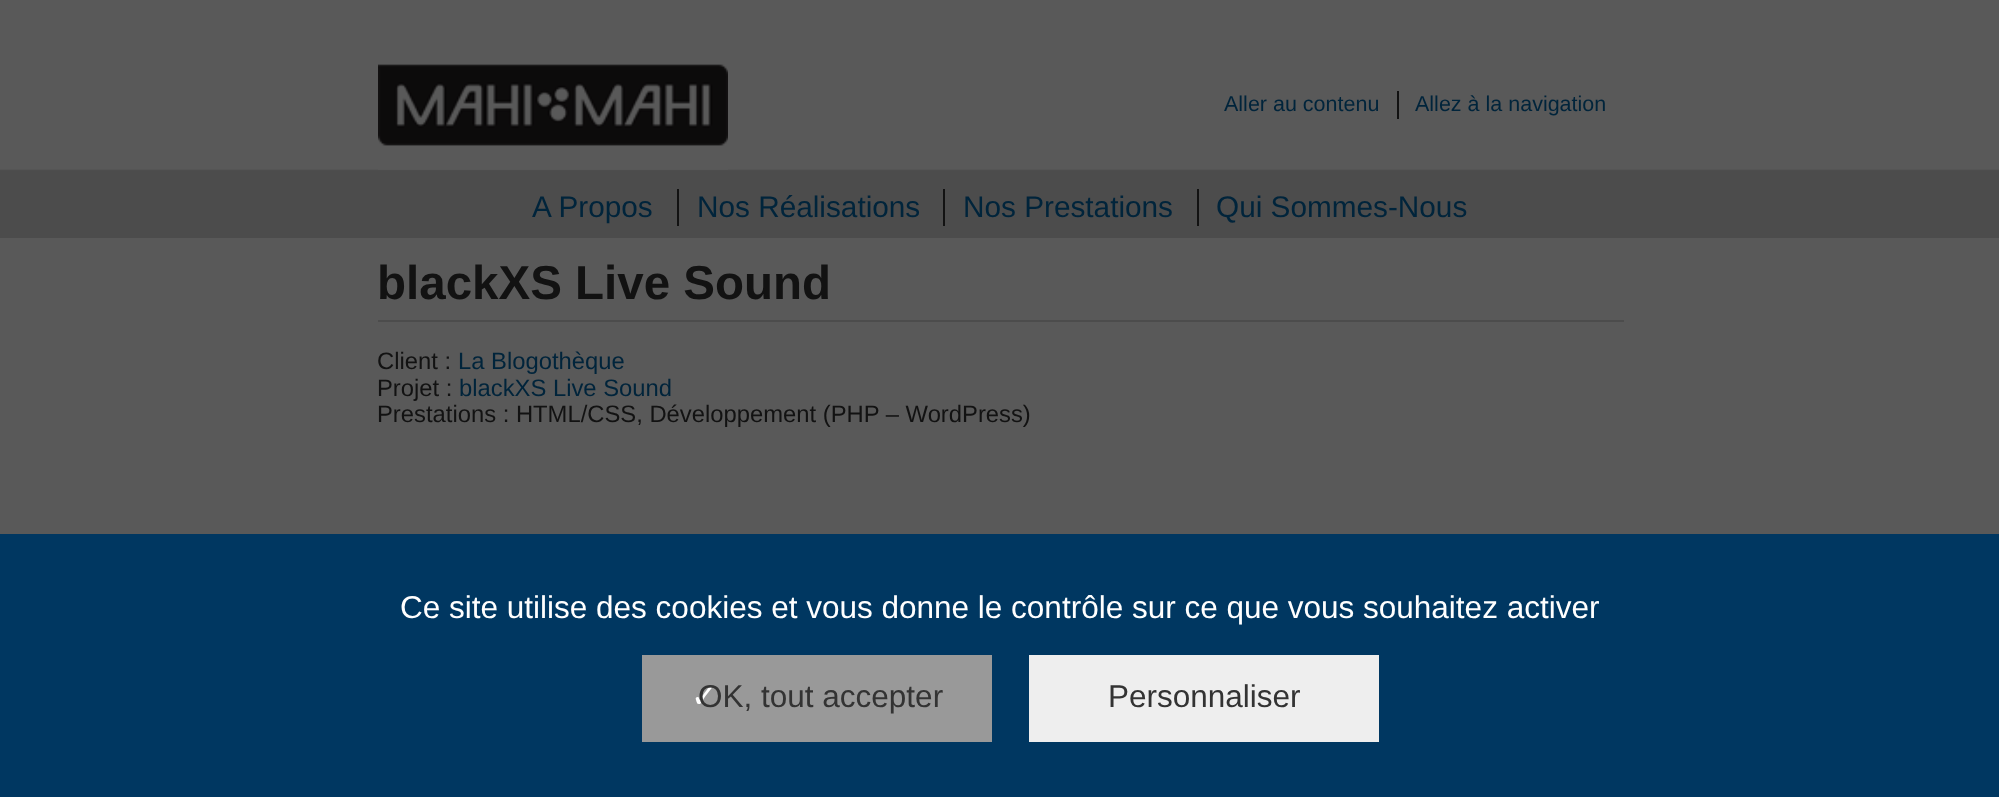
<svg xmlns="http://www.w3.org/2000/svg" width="1999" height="797">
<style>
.a{font:21.5px Liberation Sans;fill:#00243b}
.b{font:29.75px Liberation Sans;fill:#00243b}
.c{font:bold 47.5px Liberation Sans;fill:#121212}
.d{font:23.8px Liberation Sans;fill:#121212}
.e{font:23.8px Liberation Sans;fill:#00243b}
.f{font:31.5px Liberation Sans;fill:#fff}
.g{font:31.5px DejaVu Sans;fill:#fff}
.h{font:31.5px Liberation Sans;fill:#333}
</style>
<rect width="100%" height="100%" fill="#595959"/>
<image href="1.png" x="0" y="169" width="1999" height="69"/>
<image href="2.png" x="378" y="64" width="350" height="106"/>
<path fill="#121212" d="M1397 91h2v28H1397z"/>
<path fill="#121212" d="M677 189h2v37H677z"/>
<path fill="#121212" d="M943 189h2v37H943z"/>
<path fill="#121212" d="M1197 189h2v37H1197z"/>
<path fill="#4c4c4c" d="M378 320h1246v2H378z"/>
<path fill="#003761" d="M0 534h1999v263H0z"/>
<path fill="#999" d="M642 655h350v87H642z"/>
<path fill="#eee" d="M1029 655h350v87H1029z"/>
<text class="a" x="1224" y="111">Aller au contenu</text>
<text class="a" x="1415" y="111">Allez à la navigation</text>
<text class="b" x="532" y="217">A Propos</text>
<text class="b" x="697" y="217">Nos Réalisations</text>
<text class="b" x="963" y="217">Nos Prestations</text>
<text class="b" x="1216" y="217">Qui Sommes-Nous</text>
<text class="c" x="377" y="299">blackXS Live Sound</text>
<text class="d" x="377" y="369">Client :</text>
<text class="e" x="458" y="369">La Blogothèque</text>
<text class="d" x="377" y="396">Projet :</text>
<text class="e" x="459" y="396">blackXS Live Sound</text>
<text class="d" x="377" y="422">Prestations : HTML/CSS, Développement (PHP – WordPress)</text>
<text class="f" x="400" y="618">Ce site utilise des cookies et vous donne le contrôle sur ce que vous souhaitez activer</text>
<text class="g" x="691" y="707">✓</text>
<text class="h" x="698" y="707">OK, tout accepter</text>
<text class="h" x="1108" y="707">Personnaliser</text>
</svg>
